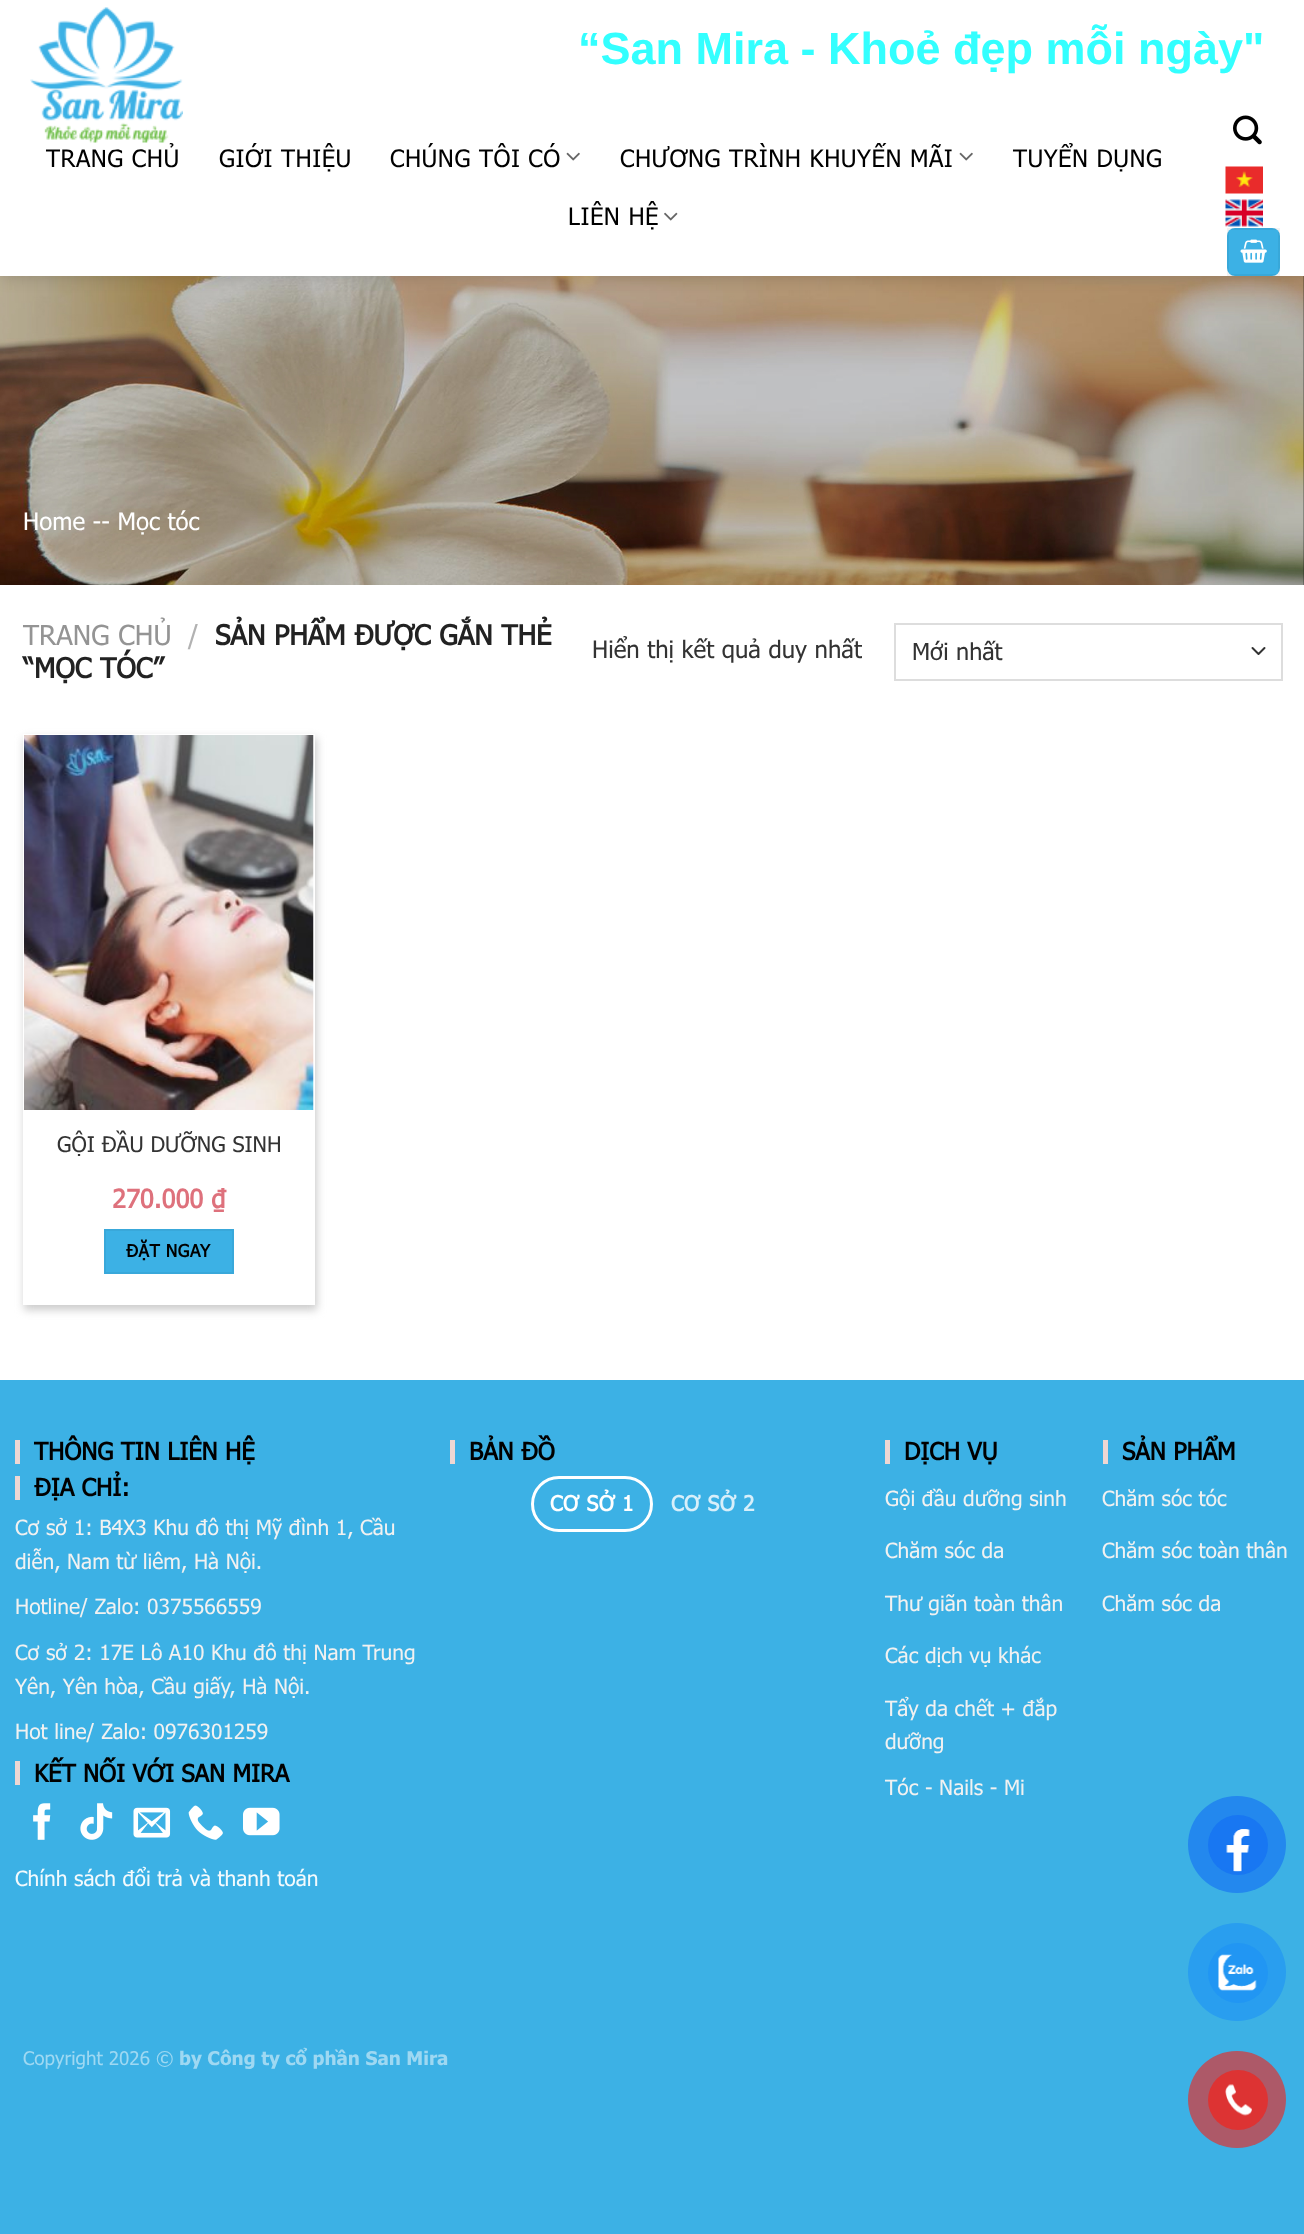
<svg xmlns="http://www.w3.org/2000/svg" width="1304" height="2234">
<style>
.a{font:bold 45px Liberation Sans;fill:#3ff}
.b{font:24px Tahoma;letter-spacing:0.5px;fill:#000}
.c{font:24px Tahoma;fill:#fff}
.d{font:27.6px Tahoma;fill:#949494}
.e{font:27.6px Tahoma;fill:#b2b2b2}
.f{font:bold 27.6px Tahoma;fill:#222}
.g{font:24px Tahoma;fill:#333}
.h{font:23.5px Tahoma;fill:#333}
.i{font:21.6px Tahoma;fill:#333}
.j{font:bold 25.5px Tahoma;fill:#de717c}
.k{font:bold 17.25px Tahoma;letter-spacing:0.5px;fill:#000}
.l{font:bold 24px Tahoma;fill:#000}
.m{font:21px Tahoma;fill:#f1f1f1}
.n{font:21px Tahoma;fill:#f3fafd}
.o{font:bold 21px Tahoma;letter-spacing:0.5px;fill:#fff}
.p{font:bold 21px Tahoma;letter-spacing:0.5px;fill:#d8effa}
.q{font:18.9px Tahoma;fill:#9ed8f2}
.r{font:bold 18.9px 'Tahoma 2';fill:#9ed8f2}
</style>
<defs>
<clipPath id="clip1"><path d="M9 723h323v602h-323zm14 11h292v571h-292z" clip-rule="evenodd"/></clipPath>
</defs>
<rect width="100%" height="100%" fill="#3cb1e5"/>
<path fill="#fff" d="M0 585h1304v795H0z"/>
<image href="8.png" x="0" y="276" width="1304" height="309"/>
<path fill="#00000026" filter="blur(7.5px)" d="M2 2h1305v276H2z"/>
<path fill="#fff" d="M0 0h1304v276H0z"/>
<image href="2.png" x="566" y="152" width="14" height="9"/>
<image href="2.png" x="959" y="152" width="14" height="9"/>
<image href="3.png" x="664" y="212" width="14" height="9"/>
<image href="4.png" x="1233" y="115" width="29" height="30"/>
<image href="5.png" x="1225" y="166" width="38" height="28"/>
<image href="6.png" x="1225" y="199" width="38" height="28"/>
<rect fill="#3cb1e5" x="1227" y="228" width="53" height="48" rx="8"/>
<path fill="none" stroke="#0000000d" stroke-width="2" d="M1228 229h51v46H1228z"/>
<image href="7.png" x="1240" y="239" width="27" height="24"/>
<path fill="none" stroke="#333" stroke-width="2" stroke-linecap="round" stroke-linejoin="round" d="M1252.5 648l6 6l6-6"/>
<path fill="none" stroke="#ddd" stroke-width="2" d="M895 624h387v56H895z"/>
<g clip-path="url(#clip1)">
<path fill="#ccc" filter="blur(4.5px)" d="M24 738h293v572H24z"/>
</g>
<image href="9.png" x="24" y="735" width="290" height="375"/>
<path fill="#3cb1e5" stroke="#39a8da" stroke-width="2" d="M105 1230h128v43H105z"/>
<path fill="#eed7d3" d="M15 1440h5v24H15z"/>
<path fill="#eed7d3" d="M15 1476h5v24H15z"/>
<path fill="#eed7d3" d="M15 1761h5v24H15z"/>
<image href="10.png" x="33" y="1803" width="18" height="37"/>
<image href="11.png" x="80" y="1803" width="33" height="37"/>
<image href="12.png" x="133" y="1807" width="38" height="31"/>
<image href="13.png" x="188" y="1805" width="35" height="35"/>
<image href="14.png" x="243" y="1807" width="37" height="29"/>
<path fill="#eed7d3" d="M450 1440h5v24H450z"/>
<rect fill="none" stroke="#fff" stroke-width="3" x="532.5" y="1477.5" width="119" height="53" rx="26.5"/>
<path fill="#eed7d3" d="M885 1440h5v24H885z"/>
<path fill="#eed7d3" d="M1103 1440h5v24H1103z"/>
<rect fill="#2388ee" x="1188" y="1796" width="98" height="97" rx="48.5"/>
<circle fill="#1877f2" cx="1238" cy="1845" r="30"/>
<image href="15.png" x="1226" y="1829" width="24" height="43"/>
<circle fill="#299eef" cx="1237" cy="1972" r="49"/>
<circle fill="#2196f3" cx="1238" cy="1973" r="30"/>
<image href="16.png" x="1218" y="1954" width="39" height="37"/>
<rect fill="#ad5968" x="1188" y="2051" width="98" height="97" rx="48.5"/>
<circle fill="#d33" cx="1238" cy="2100" r="30"/>
<image href="17.png" x="1225" y="2084" width="27" height="32"/>
<text class="a" x="578" y="64">“San Mira - Khoẻ đẹp mỗi ngày"</text>
<text class="b" x="46" y="167">TRANG CHỦ</text>
<ellipse fill="#fff" cx="106.5" cy="75" rx="84" ry="75"/>
<image href="1.png" x="30" y="7" width="153" height="136"/>
<text class="b" x="219" y="167">GIỚI THIỆU</text>
<text class="b" x="390" y="167">CHÚNG TÔI CÓ</text>
<text class="b" x="620" y="167">CHƯƠNG TRÌNH KHUYẾN MÃI</text>
<text class="b" x="1013" y="167">TUYỂN DỤNG</text>
<text class="b" x="568" y="225">LIÊN HỆ</text>
<text class="c" x="23" y="530">Home -- Mọc tóc</text>
<text class="d" x="23" y="645">TRANG CHỦ</text>
<text class="e" x="188" y="645">/</text>
<text class="f" x="215" y="645">SẢN PHẨM ĐƯỢC GẮN THẺ</text>
<text class="f" x="23" y="678">“MỌC TÓC”</text>
<text class="g" x="592" y="658">Hiển thị kết quả duy nhất</text>
<text class="h" x="912" y="660">Mới nhất</text>
<text class="i" x="57" y="1152">GỘI ĐẦU DƯỠNG SINH</text>
<text class="j" x="112" y="1208">270.000 ₫</text>
<text class="k" x="126" y="1257">ĐẶT NGAY</text>
<text class="l" x="34" y="1460">THÔNG TIN LIÊN HỆ</text>
<text class="l" x="34" y="1496">ĐỊA CHỈ:</text>
<text class="m" x="15" y="1535">Cơ sở 1: B4X3 Khu đô thị Mỹ đình 1, Cầu</text>
<text class="m" x="15" y="1569">diễn, Nam từ liêm, Hà Nội.</text>
<text class="m" x="15" y="1614">Hotline/ Zalo: 0375566559</text>
<text class="m" x="15" y="1660">Cơ sở 2: 17E Lô A10 Khu đô thị Nam Trung</text>
<text class="m" x="15" y="1694">Yên, Yên hòa, Cầu giấy, Hà Nội.</text>
<text class="m" x="15" y="1739">Hot line/ Zalo: 0976301259</text>
<text class="l" x="34" y="1782">KẾT NỐI VỚI SAN MIRA</text>
<text class="n" x="15" y="1886">Chính sách đổi trả và thanh toán</text>
<text class="l" x="469" y="1460">BẢN ĐỒ</text>
<text class="o" x="550" y="1511">CƠ SỞ 1</text>
<text class="p" x="671" y="1511">CƠ SỞ 2</text>
<text class="l" x="904" y="1460">DỊCH VỤ</text>
<text class="m" x="885" y="1506">Gội đầu dưỡng sinh</text>
<text class="m" x="885" y="1558">Chăm sóc da</text>
<text class="m" x="885" y="1611">Thư giãn toàn thân</text>
<text class="m" x="885" y="1663">Các dịch vụ khác</text>
<text class="m" x="885" y="1716">Tẩy da chết + đắp</text>
<text class="m" x="885" y="1749">dưỡng</text>
<text class="m" x="885" y="1795">Tóc - Nails - Mi</text>
<text class="l" x="1122" y="1460">SẢN PHẨM</text>
<text class="m" x="1102" y="1506">Chăm sóc tóc</text>
<text class="m" x="1102" y="1558">Chăm sóc toàn thân</text>
<text class="m" x="1102" y="1611">Chăm sóc da</text>
<text class="q" x="23" y="2065">Copyright 2026 ©</text>
<text class="r" x="179" y="2065">by Công ty cổ phần San Mira</text>
</svg>
